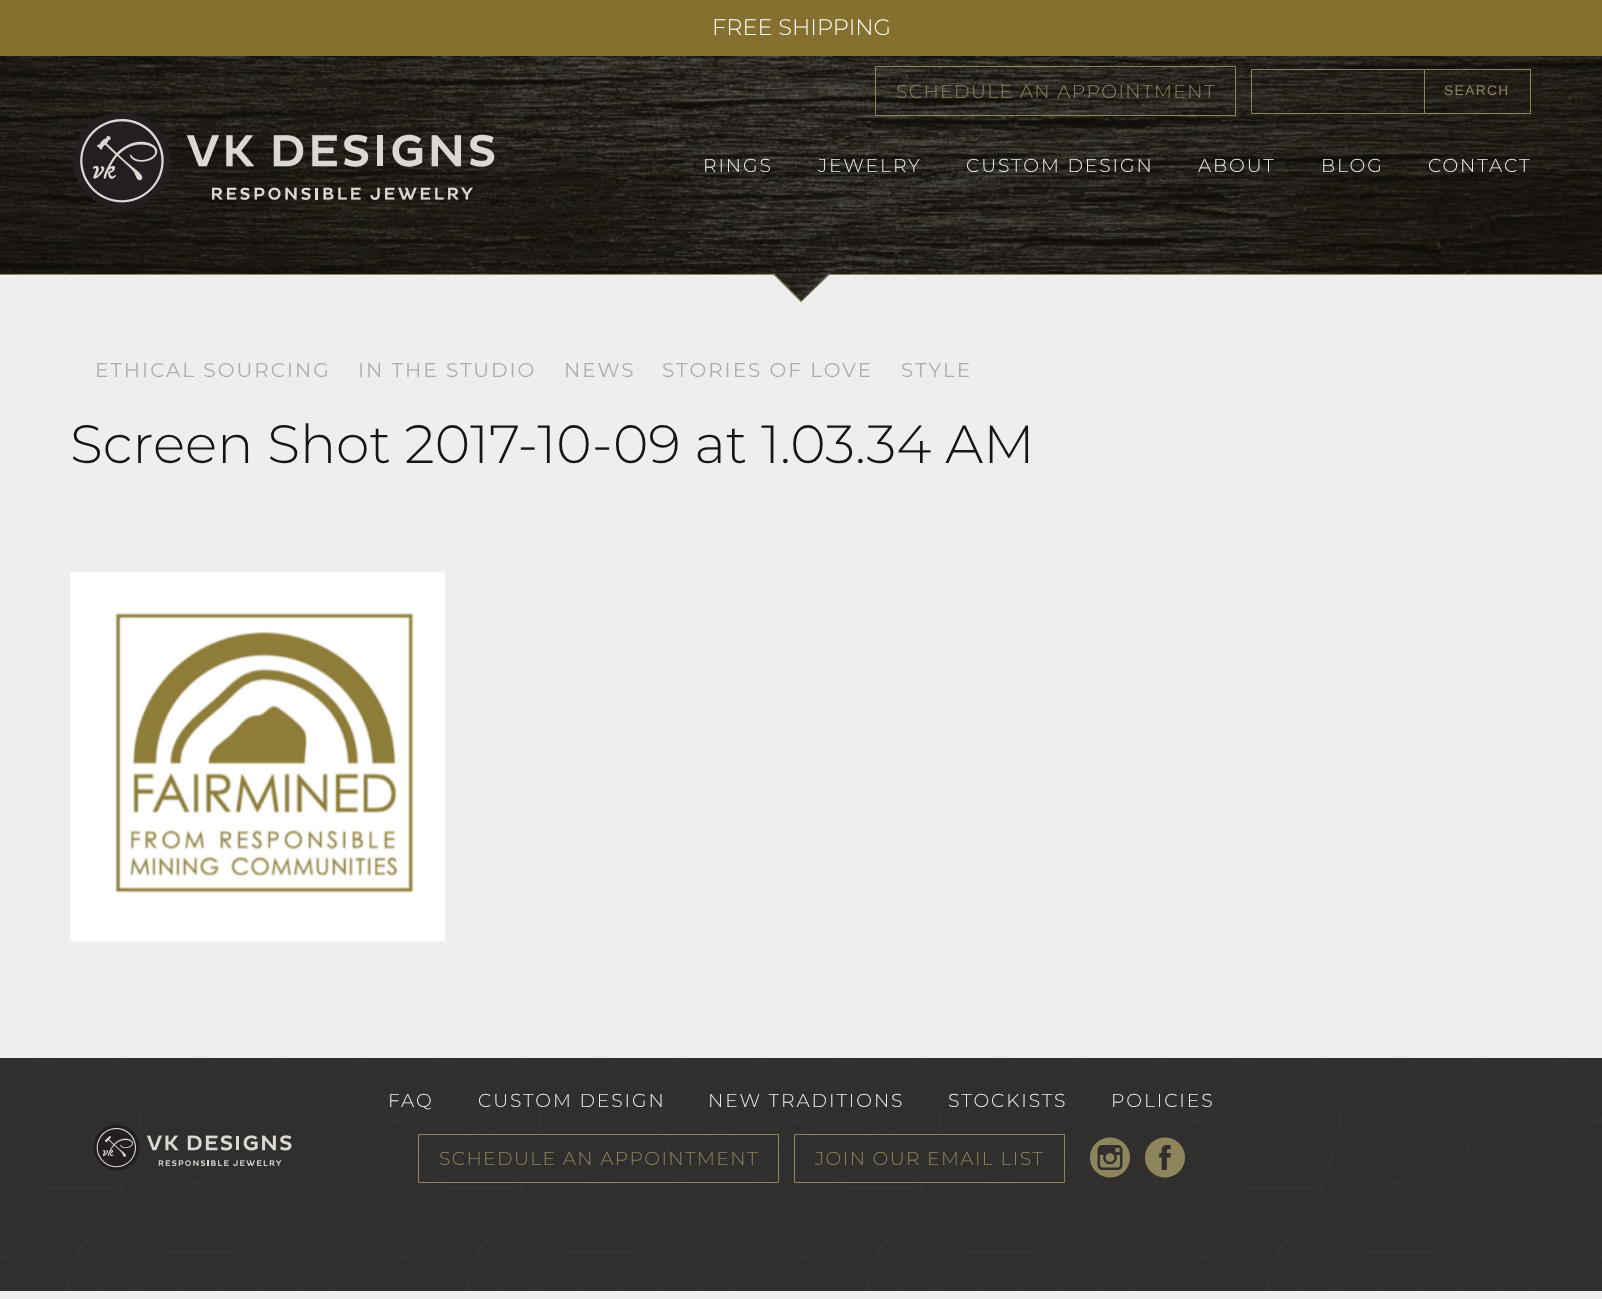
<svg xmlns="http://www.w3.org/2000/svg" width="1602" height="1299">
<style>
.a{font:300 22.5px Montserrat;fill:#fff}
.b{font:300 18.75px Montserrat;letter-spacing:1.4px;fill:#8e855c}
.c{font:13.75px Liberation Sans;letter-spacing:1.4px;fill:#8e855c}
.d{font:300 18.75px Montserrat;letter-spacing:1.9px;fill:#efeeed}
.e{font:20px Montserrat;letter-spacing:2px;fill:#aeadad}
.f{font:300 53.75px Montserrat;fill:#151515}
</style>
<rect width="100%" height="100%" fill="#efeeed"/>
<image href="1.png" x="0" y="56" width="1602" height="218"/>
<path fill="none" stroke="#8e855c" d="M875.5 66.5h360v49H875.5z"/>
<path fill="#0000000d" filter="blur(2.5px)" d="M0 4h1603v56H0z"/>
<path fill="#85702f" d="M0 0h1602v56H0z"/>
<path fill="#8e855c" d="M0 274h1602v1H0z"/>
<path fill="none" stroke="#8e855c" d="M1251.5 69.5h173v44H1251.5z"/>
<path fill="#8e855c" d="M1425 69h106v1H1425z"/>
<path fill="#8e855c" d="M1530 69h1v45H1530z"/>
<path fill="#8e855c" d="M1425 113h106v1H1425z"/>
<image href="2.png" x="73" y="112" width="422" height="97"/>
<path fill="#312f2e" d="M830 274l-29 28l-28-28z"/>
<path fill="#8e855c" d="M800.5 301.5v-.5l27.5-27.5h1.5l-28.5 28.5z"/>
<path fill="#8e855c" d="M784.5 285.5l-11.5-12h1.5l27.5 27.5l-1 1z"/>
<image href="3.png" x="774" y="273" width="54" height="28"/>
<image href="4.png" x="70" y="572" width="375" height="370"/>
<path fill="#312f2e" d="M0 1058h1602v233H0z"/>
<image href="5.png" x="0" y="1057" width="1602" height="234"/>
<image href="6.png" x="93" y="1124" width="199" height="47"/>
<path fill="none" stroke="#8e855c" d="M418.5 1134.5h360v48H418.5z"/>
<path fill="none" stroke="#8e855c" d="M794.5 1134.5h270v48H794.5z"/>
<image href="7.png" x="1090" y="1137" width="40" height="41"/>
<image href="8.png" x="1145" y="1137" width="40" height="41"/>
<text class="a" x="712" y="35">FREE SHIPPING</text>
<text class="b" x="896" y="98">SCHEDULE AN APPOINTMENT</text>
<text class="c" x="1444" y="95">SEARCH</text>
<text class="d" x="703" y="172">RINGS</text>
<text class="d" x="818" y="172">JEWELRY</text>
<text class="d" x="966" y="172">CUSTOM DESIGN</text>
<text class="d" x="1198" y="172">ABOUT</text>
<text class="d" x="1321" y="172">BLOG</text>
<text class="d" x="1428" y="172">CONTACT</text>
<text class="e" x="95" y="377">ETHICAL SOURCING</text>
<text class="e" x="358" y="377">IN THE STUDIO</text>
<text class="e" x="564" y="377">NEWS</text>
<text class="e" x="662" y="377">STORIES OF LOVE</text>
<text class="e" x="901" y="377">STYLE</text>
<text class="f" x="70" y="463">Screen Shot 2017-10-09 at 1.03.34 AM</text>
<text class="d" x="388" y="1107">FAQ</text>
<text class="d" x="478" y="1107">CUSTOM DESIGN</text>
<text class="d" x="708" y="1107">NEW TRADITIONS</text>
<text class="d" x="948" y="1107">STOCKISTS</text>
<text class="d" x="1111" y="1107">POLICIES</text>
<text class="b" x="439" y="1165">SCHEDULE AN APPOINTMENT</text>
<text class="b" x="815" y="1165">JOIN OUR EMAIL LIST</text>
</svg>
